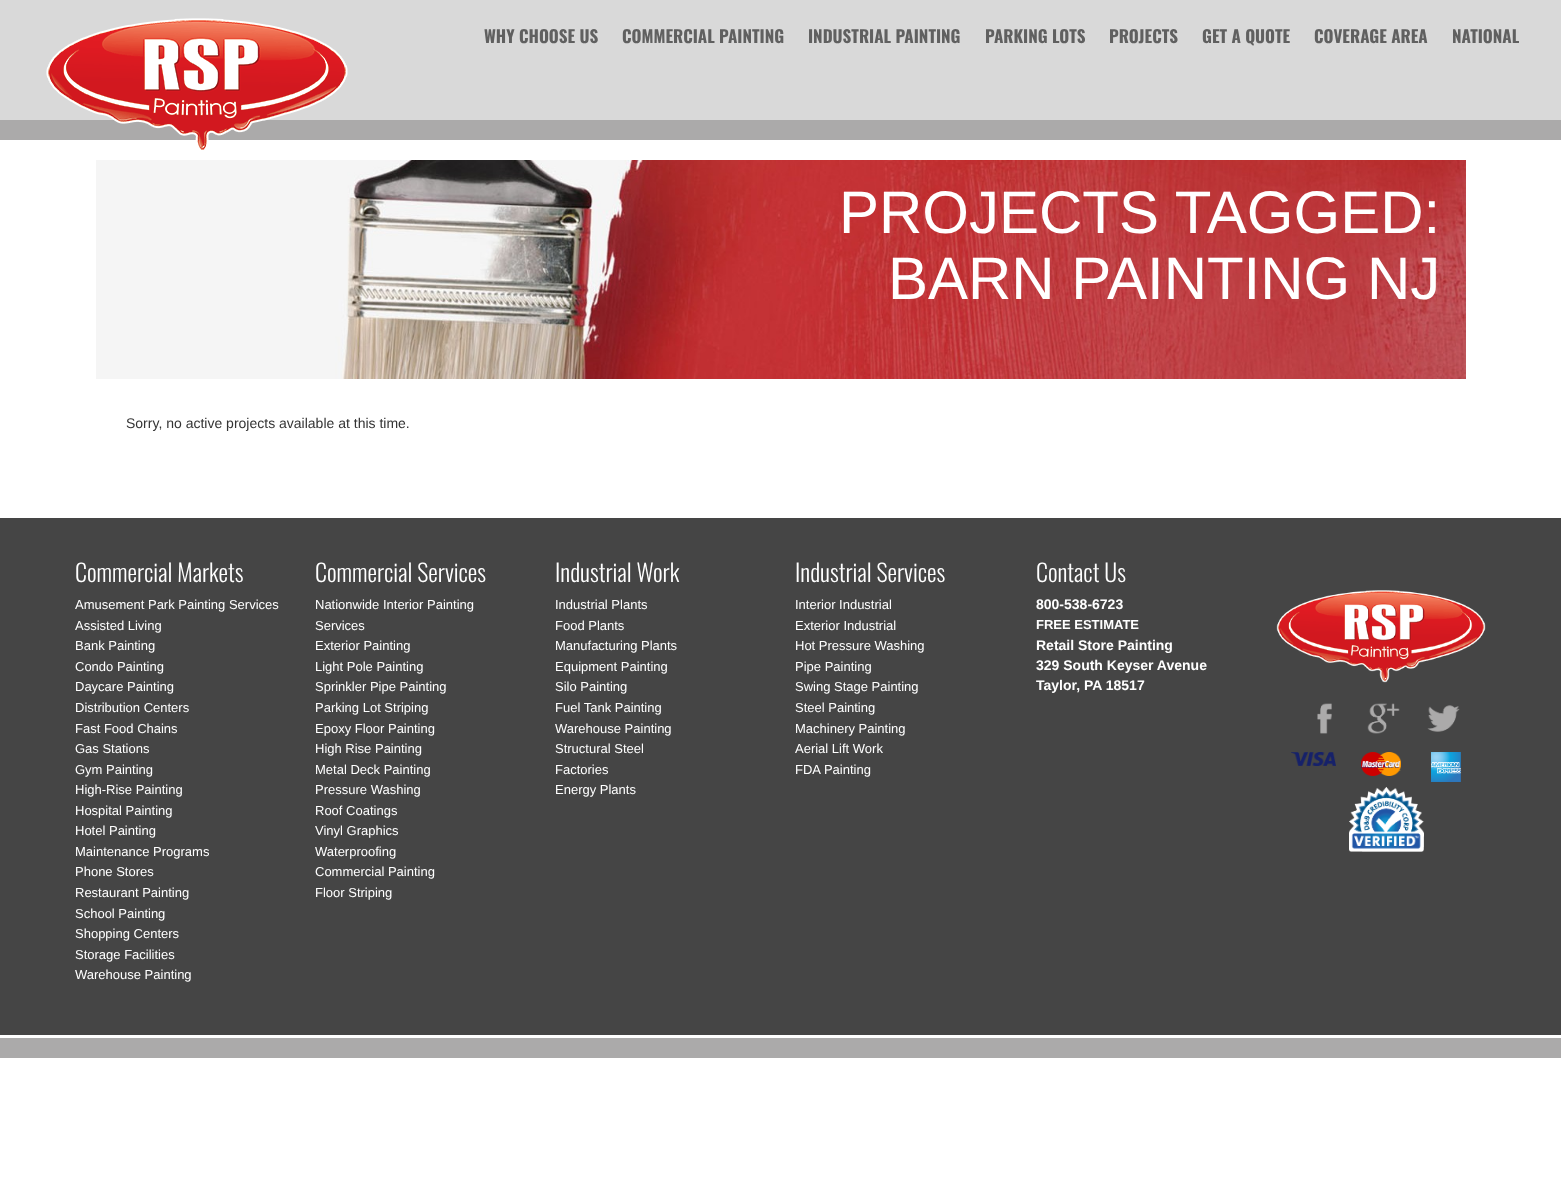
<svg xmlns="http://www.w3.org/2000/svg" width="1561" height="1203">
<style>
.a{font:bold 17px Oswald;fill:#606060}
.b{font:60px Liberation Sans;fill:#fff}
.c{font:14px Liberation Sans;fill:#333}
.d{font:300 24px Oswald;fill:#fff}
.e{font:13px Liberation Sans;fill:#fff}
.f{font:bold 14px Liberation Sans;fill:#fff}
.g{font:bold 13px Liberation Sans;fill:#fff}
</style>
<rect width="100%" height="100%" fill="#fff"/>
<path fill="#d9d9d9" d="M0 0h1561v120H0z"/>
<path fill="#abaaaa" d="M0 120h1561v20H0z"/>
<image href="1.png" x="46" y="18" width="302" height="132"/>
<image href="2.png" x="96" y="160" width="1370" height="219"/>
<path fill="#454545" d="M0 518h1561v517H0z"/>
<path fill="#abaaaa" d="M0 1038h1561v20H0z"/>
<image href="3.png" x="1276" y="590" width="210" height="93"/>
<image href="4.png" x="1317" y="703" width="15" height="31"/>
<image href="5.png" x="1367" y="703" width="33" height="31"/>
<image href="6.png" x="1427" y="705" width="33" height="27"/>
<image href="7.png" x="1291" y="752" width="45" height="14"/>
<image href="8.png" x="1361" y="752" width="40" height="24"/>
<image href="9.png" x="1431" y="752" width="30" height="30"/>
<image href="10.png" x="1349" y="787" width="75" height="65"/>
<text class="a" x="484" y="43">WHY CHOOSE US</text>
<text class="a" x="622" y="43">COMMERCIAL PAINTING</text>
<text class="a" x="808" y="43">INDUSTRIAL PAINTING</text>
<text class="a" x="985" y="43">PARKING LOTS</text>
<text class="a" x="1109" y="43">PROJECTS</text>
<text class="a" x="1202" y="43">GET A QUOTE</text>
<text class="a" x="1314" y="43">COVERAGE AREA</text>
<text class="a" x="1452" y="43">NATIONAL</text>
<text class="b" x="839" y="233">PROJECTS TAGGED:</text>
<text class="b" x="888" y="299">BARN PAINTING NJ</text>
<text class="c" x="126" y="428">Sorry, no active projects available at this time.</text>
<text class="d" x="75" y="582">Commercial Markets</text>
<text class="e" x="75" y="609">Amusement Park Painting Services</text>
<text class="e" x="75" y="630">Assisted Living</text>
<text class="e" x="75" y="650">Bank Painting</text>
<text class="e" x="75" y="671">Condo Painting</text>
<text class="e" x="75" y="691">Daycare Painting</text>
<text class="e" x="75" y="712">Distribution Centers</text>
<text class="e" x="75" y="733">Fast Food Chains</text>
<text class="e" x="75" y="753">Gas Stations</text>
<text class="e" x="75" y="774">Gym Painting</text>
<text class="e" x="75" y="794">High-Rise Painting</text>
<text class="e" x="75" y="815">Hospital Painting</text>
<text class="e" x="75" y="835">Hotel Painting</text>
<text class="e" x="75" y="856">Maintenance Programs</text>
<text class="e" x="75" y="876">Phone Stores</text>
<text class="e" x="75" y="897">Restaurant Painting</text>
<text class="e" x="75" y="918">School Painting</text>
<text class="e" x="75" y="938">Shopping Centers</text>
<text class="e" x="75" y="959">Storage Facilities</text>
<text class="e" x="75" y="979">Warehouse Painting</text>
<text class="d" x="315" y="582">Commercial Services</text>
<text class="e" x="315" y="609">Nationwide Interior Painting</text>
<text class="e" x="315" y="630">Services</text>
<text class="e" x="315" y="650">Exterior Painting</text>
<text class="e" x="315" y="671">Light Pole Painting</text>
<text class="e" x="315" y="691">Sprinkler Pipe Painting</text>
<text class="e" x="315" y="712">Parking Lot Striping</text>
<text class="e" x="315" y="733">Epoxy Floor Painting</text>
<text class="e" x="315" y="753">High Rise Painting</text>
<text class="e" x="315" y="774">Metal Deck Painting</text>
<text class="e" x="315" y="794">Pressure Washing</text>
<text class="e" x="315" y="815">Roof Coatings</text>
<text class="e" x="315" y="835">Vinyl Graphics</text>
<text class="e" x="315" y="856">Waterproofing</text>
<text class="e" x="315" y="876">Commercial Painting</text>
<text class="e" x="315" y="897">Floor Striping</text>
<text class="d" x="555" y="582">Industrial Work</text>
<text class="e" x="555" y="609">Industrial Plants</text>
<text class="e" x="555" y="630">Food Plants</text>
<text class="e" x="555" y="650">Manufacturing Plants</text>
<text class="e" x="555" y="671">Equipment Painting</text>
<text class="e" x="555" y="691">Silo Painting</text>
<text class="e" x="555" y="712">Fuel Tank Painting</text>
<text class="e" x="555" y="733">Warehouse Painting</text>
<text class="e" x="555" y="753">Structural Steel</text>
<text class="e" x="555" y="774">Factories</text>
<text class="e" x="555" y="794">Energy Plants</text>
<text class="d" x="795" y="582">Industrial Services</text>
<text class="e" x="795" y="609">Interior Industrial</text>
<text class="e" x="795" y="630">Exterior Industrial</text>
<text class="e" x="795" y="650">Hot Pressure Washing</text>
<text class="e" x="795" y="671">Pipe Painting</text>
<text class="e" x="795" y="691">Swing Stage Painting</text>
<text class="e" x="795" y="712">Steel Painting</text>
<text class="e" x="795" y="733">Machinery Painting</text>
<text class="e" x="795" y="753">Aerial Lift Work</text>
<text class="e" x="795" y="774">FDA Painting</text>
<text class="d" x="1036" y="582">Contact Us</text>
<text class="f" x="1036" y="609">800-538-6723</text>
<text class="g" x="1036" y="629">FREE ESTIMATE</text>
<text class="f" x="1036" y="650">Retail Store Painting</text>
<text class="f" x="1036" y="670">329 South Keyser Avenue</text>
<text class="f" x="1036" y="690">Taylor, PA 18517</text>
</svg>
